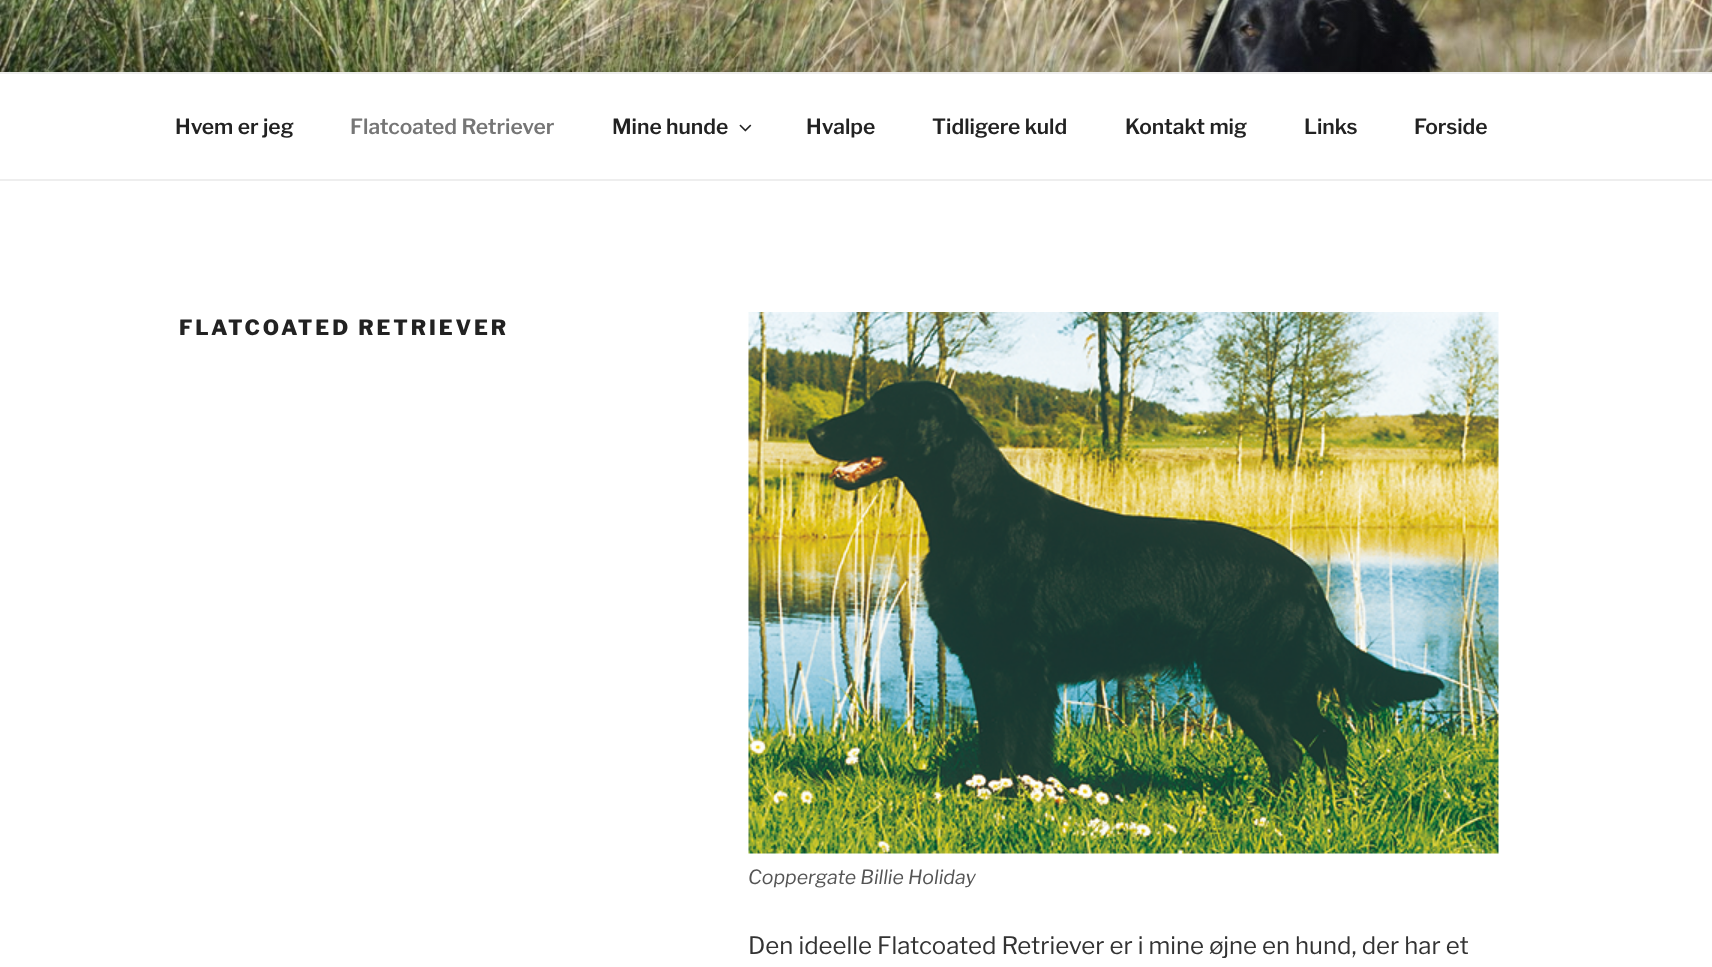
<svg xmlns="http://www.w3.org/2000/svg" width="1712" height="967">
<style>
.a{font:100 21px 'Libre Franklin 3';fill:#222}
.b{font:100 21px 'Libre Franklin 3';fill:#767676}
.c{font:100 21px Libre Franklin;letter-spacing:2.9px;fill:#222}
.d{font:italic 100 19.5px Libre Franklin;fill:#555}
.e{font:100 24px 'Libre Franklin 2';fill:#333}
</style>
<defs>
<linearGradient id="g1" gradientUnits="userSpaceOnUse" x1="857" y1="0" x2="857" y2="180"><stop offset="0" stop-color="#000" stop-opacity="0"/><stop offset="0.75" stop-color="#000" stop-opacity="0.3"/><stop offset="1" stop-color="#000" stop-opacity="0.3"/></linearGradient>
</defs>
<rect width="100%" height="100%" fill="#fff"/>
<image href="1.png" x="0" y="0" width="1712" height="72"/>
<path fill="url(#g1)" d="M0 10h1712v62H0z"/>
<path fill="#eee" d="M0 72h1712v2H0z"/>
<path fill="#eee" d="M0 179h1712v2H0z"/>
<image href="2.png" x="739" y="124" width="13" height="8"/>
<image href="3.png" x="748" y="312" width="751" height="542"/>
<text class="a" x="175" y="134">Hvem er jeg</text>
<text class="b" x="350" y="134">Flatcoated Retriever</text>
<text class="a" x="612" y="134">Mine hunde</text>
<text class="a" x="806" y="134">Hvalpe</text>
<text class="a" x="932" y="134">Tidligere kuld</text>
<text class="a" x="1125" y="134">Kontakt mig</text>
<text class="a" x="1304" y="134">Links</text>
<text class="a" x="1414" y="134">Forside</text>
<text class="c" x="179" y="335">FLATCOATED RETRIEVER</text>
<text class="d" x="748" y="884">Coppergate Billie Holiday</text>
<text class="e" x="748" y="954">Den ideelle Flatcoated Retriever er i mine øjne en hund, der har et</text>
</svg>
